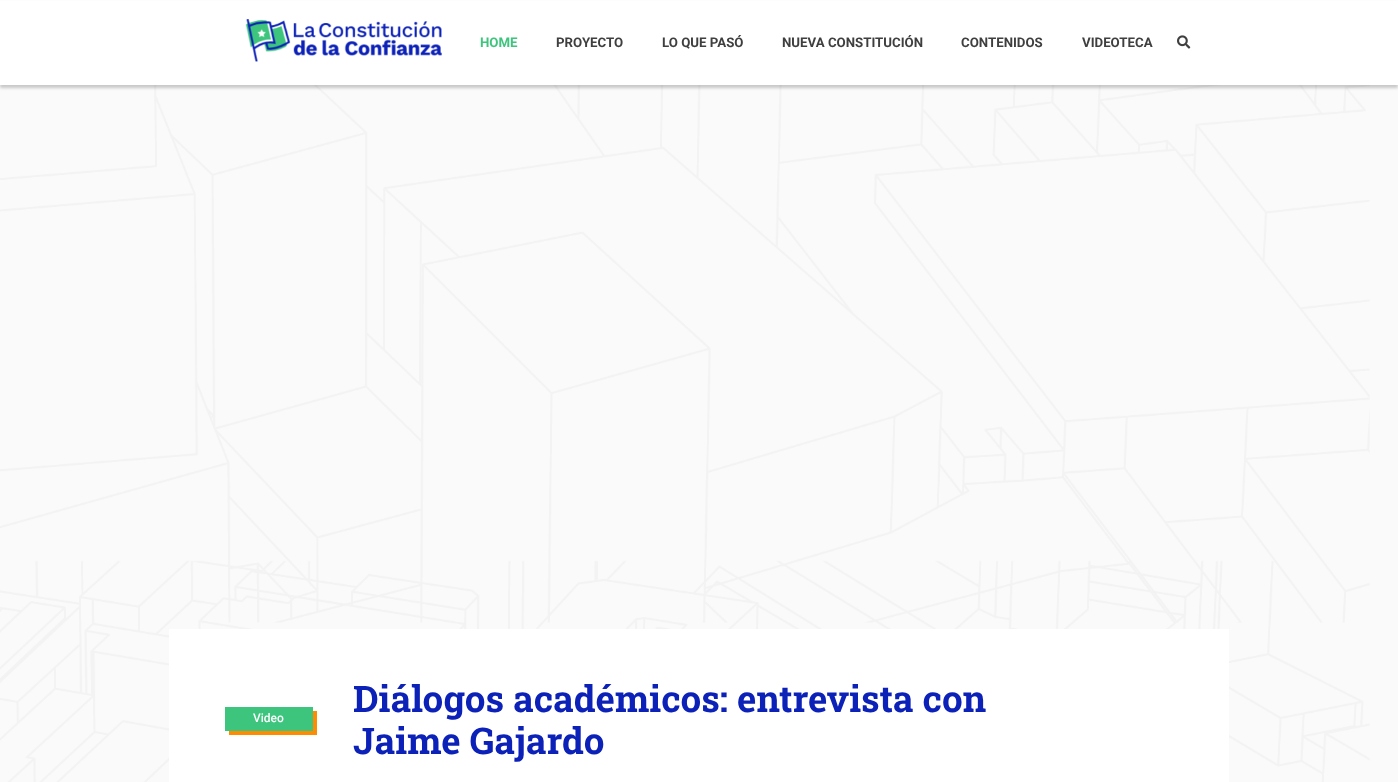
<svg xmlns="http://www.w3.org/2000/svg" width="1398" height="782">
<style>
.a{font:bold 13.25px Roboto;fill:#3dc47d}
.b{font:bold 13.25px Roboto;fill:#403f3f}
.c{font:500 12px Roboto;fill:#fff}
.d{font:bold 36.75px Roboto Slab;fill:#0c21b7}
</style>
<rect width="100%" height="100%" fill="#fff"/>
<image href="3.png" x="0" y="85" width="1398" height="697"/>
<path fill="#00000033" filter="blur(1.5px)" d="M0 3h1398v85H0z"/>
<path fill="#fff" d="M0 1h1398v84H0z"/>
<image href="1.png" x="245" y="19" width="197" height="43"/>
<image href="2.png" x="1177" y="35" width="14" height="14"/>
<path fill="#fff" d="M169 629h1060v153H169z"/>
<path fill="#ff8c00" d="M229 731v4h88v-24h-4v20z"/>
<path fill="#3dc47d" d="M225 707h88v24H225z"/>
<text class="a" x="480" y="47">HOME</text>
<text class="b" x="556" y="47">PROYECTO</text>
<text class="b" x="662" y="47">LO QUE PASÓ</text>
<text class="b" x="782" y="47">NUEVA CONSTITUCIÓN</text>
<text class="b" x="961" y="47">CONTENIDOS</text>
<text class="b" x="1082" y="47">VIDEOTECA</text>
<text class="c" x="253" y="722">Video</text>
<text class="d" x="353" y="712">Diálogos académicos: entrevista con</text>
<text class="d" x="353" y="754">Jaime Gajardo</text>
</svg>
